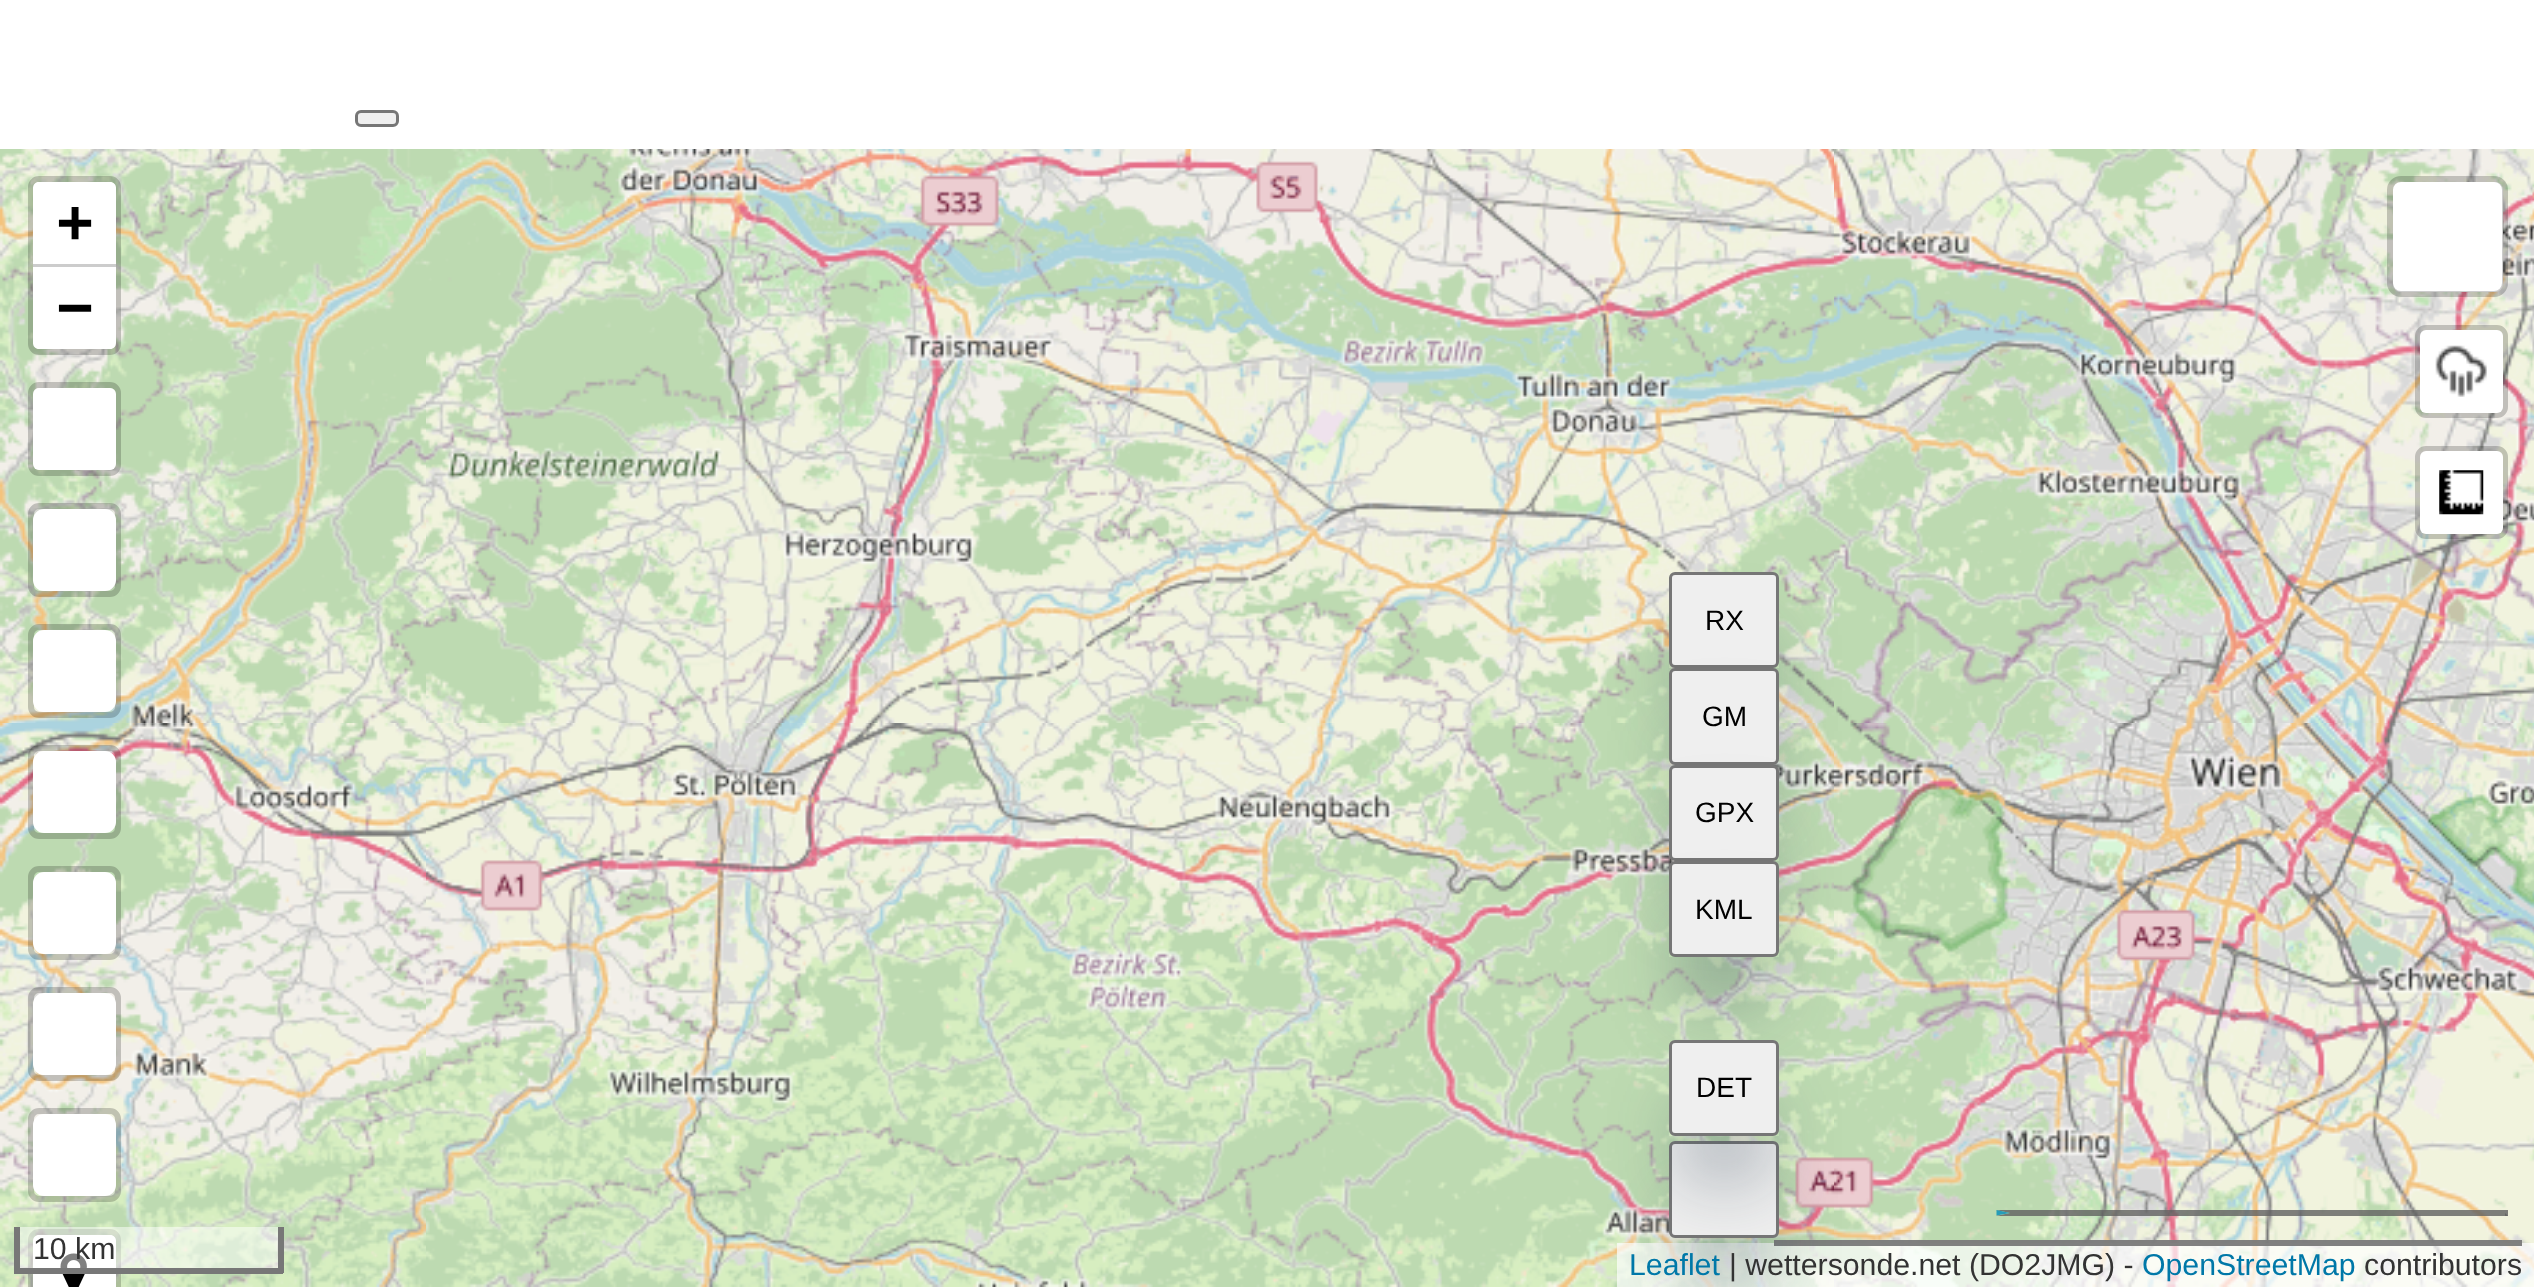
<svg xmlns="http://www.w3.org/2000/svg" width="2534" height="1287">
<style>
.a{font:bold 60px DejaVu Sans Mono;fill:#000}
.b{font:30.25px Liberation Sans;fill:#333}
.c{font:30.25px Liberation Sans;fill:#0078a8}
.d{font:28px Liberation Sans;fill:#000}
</style>
<defs>
<clipPath id="clip1"><path d="M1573 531h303v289h-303zm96 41h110v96h-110z" clip-rule="evenodd"/></clipPath>
<clipPath id="clip2"><path d="M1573 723h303v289h-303zm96 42h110v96h-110z" clip-rule="evenodd"/></clipPath>
<clipPath id="clip3"><path d="M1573 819h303v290h-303zm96 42h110v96h-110z" clip-rule="evenodd"/></clipPath>
<clipPath id="clip4"><path d="M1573 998h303v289h-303zm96 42h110v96h-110z" clip-rule="evenodd"/></clipPath>
</defs>
<rect width="100%" height="100%" fill="#fff"/>
<rect fill="#efefef" stroke="#767676" stroke-width="3" x="356.5" y="111.5" width="41" height="14" rx="4.5"/>
<image href="1.png" x="0" y="149" width="426" height="574"/>
<image href="2.png" x="426" y="149" width="704" height="574"/>
<image href="3.png" x="1130" y="149" width="704" height="574"/>
<image href="4.png" x="1834" y="149" width="700" height="574"/>
<image href="5.png" x="0" y="723" width="426" height="564"/>
<image href="6.png" x="426" y="723" width="704" height="564"/>
<image href="7.png" x="1130" y="723" width="704" height="564"/>
<image href="8.png" x="1834" y="723" width="700" height="564"/>
<rect fill="none" stroke="#00000033" stroke-width="6" x="31" y="179" width="87" height="173" rx="8"/>
<path fill="#fff" d="M39 182h71c3.5 0 6 2.5 6 6v79h-83v-79c0-3.5 2.5-6 6-6z"/>
<path fill="#ccc" d="M33 264h83v3H33z"/>
<path fill="#fff" d="M33 267h83v76c0 3.5-2.5 6-6 6h-71c-3.5 0-6-2.5-6-6z"/>
<rect fill="none" stroke="#00000033" stroke-width="6" x="31" y="385" width="87" height="88" rx="8"/>
<rect fill="#fff" x="33" y="388" width="83" height="82" rx="6"/>
<rect fill="none" stroke="#00000033" stroke-width="6" x="31" y="506" width="87" height="88" rx="8"/>
<rect fill="#fff" x="33" y="509" width="83" height="82" rx="11"/>
<rect fill="none" stroke="#00000033" stroke-width="6" x="31" y="627" width="87" height="88" rx="8"/>
<rect fill="#fff" x="33" y="630" width="83" height="82" rx="11"/>
<rect fill="none" stroke="#00000033" stroke-width="6" x="31" y="748" width="87" height="88" rx="8"/>
<rect fill="#fff" x="33" y="751" width="83" height="82" rx="11"/>
<rect fill="none" stroke="#00000033" stroke-width="6" x="31" y="869" width="87" height="88" rx="8"/>
<rect fill="#fff" x="33" y="872" width="83" height="82" rx="11"/>
<rect fill="none" stroke="#00000033" stroke-width="6" x="31" y="990" width="87" height="88" rx="8"/>
<rect fill="#fff" x="33" y="993" width="83" height="82" rx="11"/>
<rect fill="none" stroke="#00000033" stroke-width="6" x="31" y="1111" width="87" height="88" rx="8"/>
<rect fill="#fff" x="33" y="1114" width="83" height="82" rx="11"/>
<rect fill="none" stroke="#00000033" stroke-width="6" x="31" y="1232" width="87" height="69" rx="8"/>
<path fill="#fff" d="M39 1235h71c3.5 0 6 2.5 6 6v46h-83v-46c0-3.5 2.5-6 6-6z"/>
<image href="9.png" x="60" y="1253" width="27" height="34"/>
<rect fill="#fff" x="2393" y="182" width="110" height="110" rx="8"/>
<rect fill="none" stroke="#00000033" stroke-width="6" x="2390" y="179" width="115" height="115" rx="11"/>
<rect fill="none" stroke="#00000033" stroke-width="6" x="2418" y="328" width="87" height="87" rx="8"/>
<rect fill="#fff" x="2420" y="330" width="83" height="83" rx="6"/>
<image href="10.png" x="2435" y="345" width="52" height="52"/>
<rect fill="none" stroke="#00000033" stroke-width="6" x="2418" y="449" width="87" height="87" rx="8"/>
<rect fill="#fff" x="2420" y="451" width="83" height="83" rx="6"/>
<image href="11.png" x="2439" y="470" width="45" height="45"/>
<path fill="#ffffff80" d="M20 1227h258v41H20z"/>
<path fill="#777" d="M278 1227h6v46H278z"/>
<path fill="#777" d="M14 1268h269v6H14z"/>
<path fill="#777" d="M14 1227h6v46H14z"/>
<path fill="#606060cc" d="M1996 1210h512l-3 3h-495z"/>
<path fill="#7d7d79" d="M2505 1210h3v6H2505z"/>
<path fill="#606060cc" d="M2508 1216h-512l14-3h495z"/>
<path fill="#269cb8" d="M1996.5 1215.5v-5.5l13.5 3z"/>
<path fill="#ffffffb3" d="M1617 1243h917v44H1617z"/>
<g clip-path="url(#clip1)">
<path fill="#26394d" filter="blur(41px)" d="M1697 655h55v41H1697z"/>
</g>
<rect fill="#efefef" stroke="#767676" stroke-width="3" x="1670.5" y="573.5" width="107" height="93" rx="4.5"/>
<path fill="#26394d" filter="blur(41px)" d="M1697 751h55v41H1697z"/>
<rect fill="#efefef" stroke="#767676" stroke-width="3" x="1670.5" y="669.5" width="107" height="94" rx="4.5"/>
<g clip-path="url(#clip2)">
<path fill="#26394d" filter="blur(41px)" d="M1697 847h55v41H1697z"/>
</g>
<rect fill="#efefef" stroke="#767676" stroke-width="3" x="1670.5" y="766.5" width="107" height="93" rx="4.5"/>
<g clip-path="url(#clip3)">
<path fill="#26394d" filter="blur(41px)" d="M1697 943h55v42H1697z"/>
</g>
<rect fill="#efefef" stroke="#767676" stroke-width="3" x="1670.5" y="862.5" width="107" height="93" rx="4.5"/>
<path fill="#ffffffcc" d="M1774 1240h748v6H1774z"/>
<path fill="#606060cc" d="M1774 1240h748v6H1774z"/>
<path fill="#26394d" filter="blur(41px)" d="M1697 1224h55v41H1697z"/>
<rect fill="#efefef" stroke="#767676" stroke-width="3" x="1670.5" y="1142.5" width="107" height="94" rx="4.5"/>
<g clip-path="url(#clip4)">
<path fill="#26394d" filter="blur(41px)" d="M1697 1122h55v41H1697z"/>
</g>
<rect fill="#efefef" stroke="#767676" stroke-width="3" x="1670.5" y="1041.5" width="107" height="93" rx="4.5"/>
<text class="a" x="57" y="242">+</text>
<text class="a" x="57" y="327">−</text>
<text class="b" x="33" y="1259">10 km</text>
<text class="c" x="1629" y="1275">Leaflet</text>
<text class="b" x="1729" y="1275">| wettersonde.net (DO2JMG) -</text>
<text class="c" x="2142" y="1275">OpenStreetMap</text>
<text class="b" x="2364" y="1275">contributors</text>
<text class="d" x="1705" y="630">RX</text>
<text class="d" x="1702" y="726">GM</text>
<text class="d" x="1695" y="822">GPX</text>
<text class="d" x="1695" y="919">KML</text>
<text class="d" x="1696" y="1097">DET</text>
</svg>
